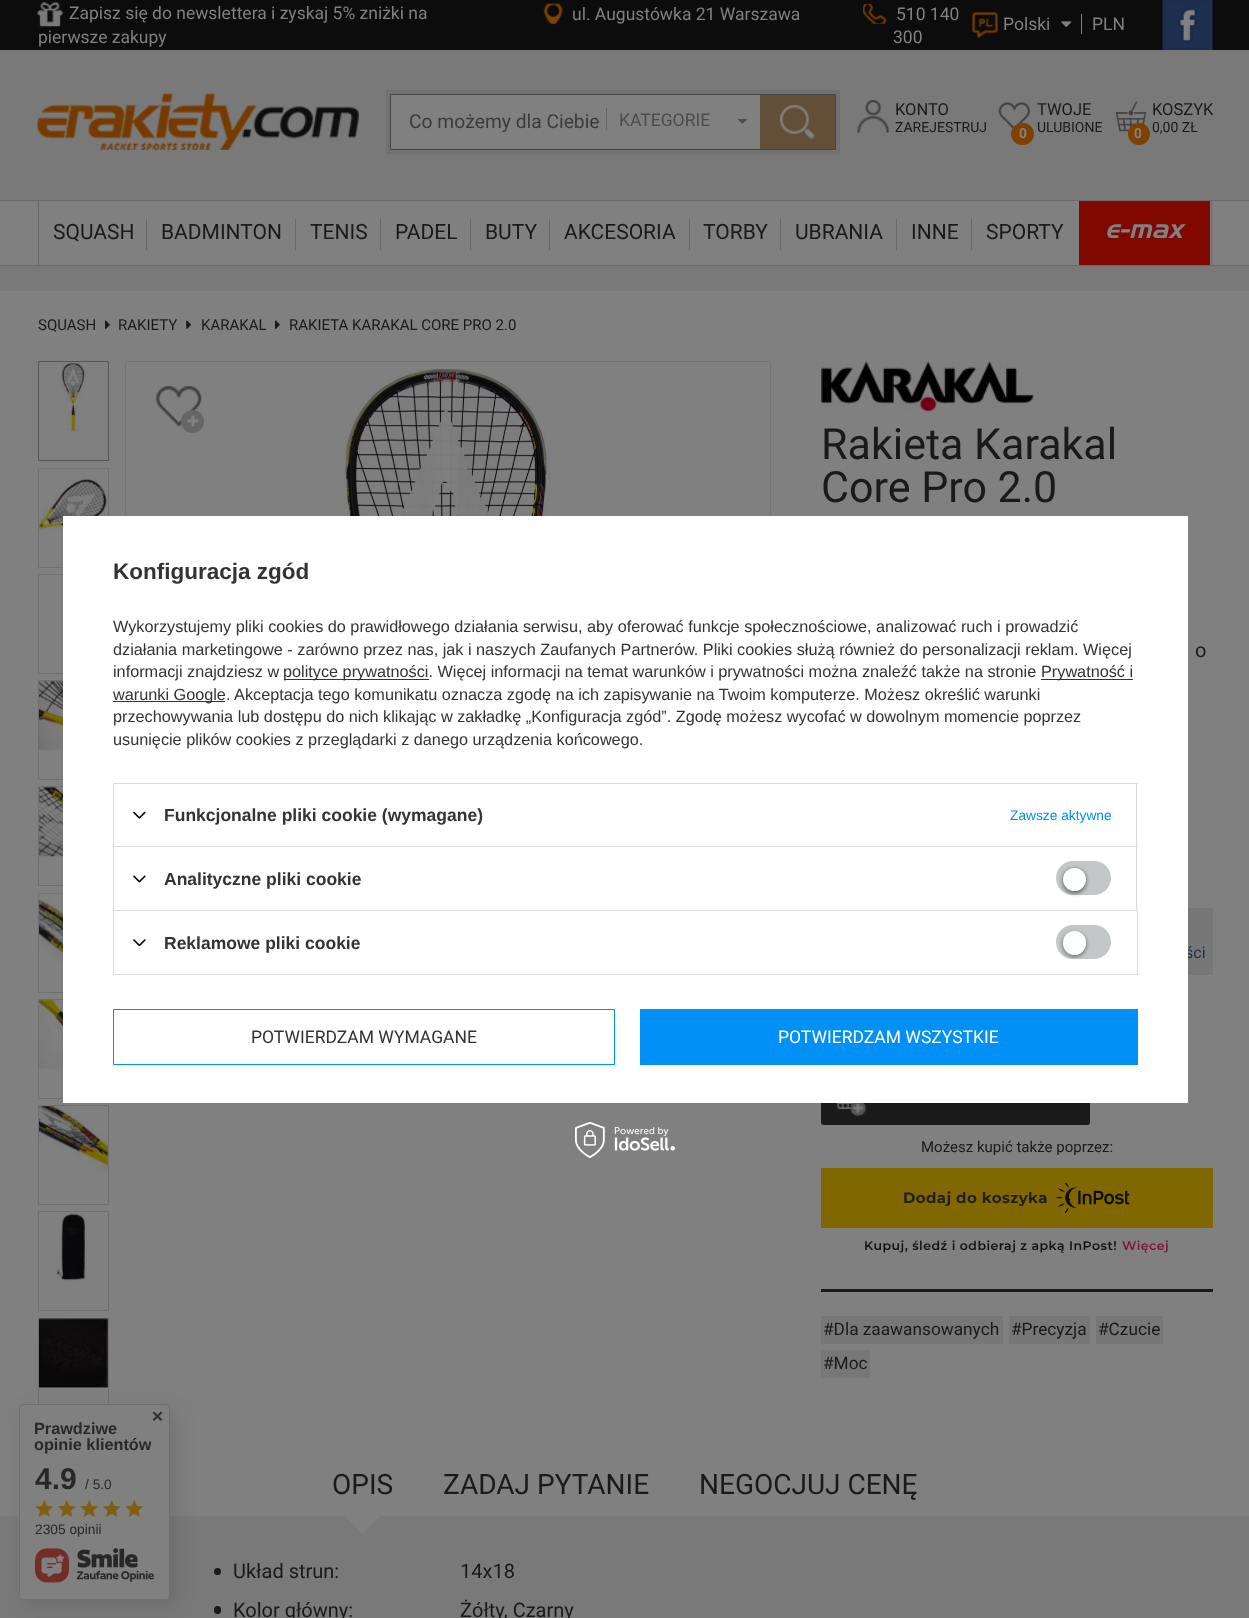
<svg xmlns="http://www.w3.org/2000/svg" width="1249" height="1618">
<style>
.a{font:17.5px Roboto;fill:#808080}
.b{font:19.25px Roboto;fill:#3b3b3b}
.c{font:17.5px Roboto;fill:#4c4c4c}
.d{font:16.5px Roboto;fill:#1a1a1a}
.e{font:14px Roboto;fill:#1a1a1a}
.f{font:bold 13.75px Roboto;fill:#808080}
.g{font:21px Roboto;fill:#1a1a1a}
.h{font:italic 26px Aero;fill:#808080}
.i{font:15px Roboto;fill:#1a1a1a}
.j{font:43px Roboto;fill:#1a1a1a}
.k{font:20px Roboto;fill:#1a1a1a}
.l{font:16px Roboto;fill:#1e2e4e}
.m{font:bold 15px Montserrat;letter-spacing:0.4px;fill:#202021}
.n{font:600 12.5px Montserrat;letter-spacing:0.5px;fill:#131314}
.o{font:600 12.5px Montserrat;letter-spacing:0.5px;fill:#80163f}
.p{font:17.25px Roboto;fill:#1a1a1a}
.q{font:28px Roboto;fill:#1a1a1a}
.r{font:bold 22.5px Liberation Sans;fill:#333}
.s{font:16.25px Liberation Sans;fill:#333}
.t{font:bold 17.5px Liberation Sans;fill:#333}
.u{font:13.75px Liberation Sans;fill:#0090f6}
.v{font:17.5px Roboto;fill:#333}
.w{font:17.5px Roboto;fill:#fff}
.x{font:bold 16.25px Liberation Sans;fill:#282828}
.y{font:bold 30px Liberation Sans;fill:#282828}
.z{font:13.75px Liberation Sans;fill:#282828}
</style>
<rect width="100%" height="100%" fill="#797979"/>
<path fill="#0c0c0c" d="M0 0h1249v50H0z"/>
<image href="1.png" x="37" y="2" width="26" height="25"/>
<image href="2.png" x="543" y="3" width="20" height="21"/>
<image href="3.png" x="863" y="4" width="24" height="20"/>
<image href="4.png" x="972" y="12" width="26" height="26"/>
<image href="5.png" x="1061" y="21" width="11" height="6"/>
<path fill="#808080" d="M1081 14h1v20H1081z"/>
<image href="6.png" x="1162" y="0" width="51" height="50"/>
<image href="7.png" x="37" y="93" width="322" height="57"/>
<path fill="none" stroke="#717171" stroke-width="4" d="M388 92h450v60H388z"/>
<path fill="#808080" d="M391 95h369v54H391z"/>
<path fill="none" stroke="#454545" d="M390.5 94.5h445v55H390.5z"/>
<path fill="#666" d="M606 108h1v22H606z"/>
<path fill="#4c4c4c" d="M737.5 119h10l-5 5z"/>
<path fill="#634e37" d="M760 95h75v54H760z"/>
<image href="8.png" x="780" y="105" width="35" height="34"/>
<image href="9.png" x="857" y="100" width="32" height="33"/>
<image href="10.png" x="998" y="102" width="32" height="27"/>
<rect fill="#804100" x="1011" y="123" width="23" height="22" rx="11"/>
<image href="11.png" x="1115" y="101" width="32" height="31"/>
<circle fill="#804100" cx="1139" cy="134" r="11"/>
<path fill="#808080" d="M0 201h1249v64H0z"/>
<path fill="#696969" d="M0 200h1249v1H0z"/>
<path fill="#696969" d="M0 265h1249v1H0z"/>
<path fill="#696969" d="M1211 201h1v64H1211z"/>
<path fill="#696969" d="M38 201h1v64H38z"/>
<path fill="#696969" d="M146 219h1v31H146z"/>
<path fill="#696969" d="M295 219h1v31H295z"/>
<path fill="#696969" d="M380 219h1v31H380z"/>
<path fill="#696969" d="M470 219h1v31H470z"/>
<path fill="#696969" d="M549 219h1v31H549z"/>
<path fill="#696969" d="M689 219h1v31H689z"/>
<path fill="#696969" d="M780 219h1v31H780z"/>
<path fill="#696969" d="M896 219h1v31H896z"/>
<path fill="#696969" d="M971 219h1v31H971z"/>
<path fill="#7f0700" d="M1079 201h131v64H1079z"/>
<path fill="#808080" d="M0 291h1249v1225H0z"/>
<image href="12.png" x="105" y="320" width="5" height="9"/>
<image href="13.png" x="186" y="320" width="5" height="9"/>
<image href="12.png" x="275" y="320" width="5" height="9"/>
<path fill="none" stroke="#555" d="M38.5 361.5h70v99H38.5z"/>
<image href="14.png" x="61" y="362" width="25" height="70"/>
<path fill="none" stroke="#6f6f6f" d="M38.5 468.5h70v99H38.5z"/>
<image href="15.png" x="39" y="468" width="69" height="62"/>
<path fill="none" stroke="#6f6f6f" d="M38.5 574.5h70v99H38.5z"/>
<image href="16.png" x="39" y="574" width="24" height="71"/>
<path fill="none" stroke="#6f6f6f" d="M38.5 680.5h70v99H38.5z"/>
<image href="17.png" x="39" y="681" width="24" height="70"/>
<path fill="none" stroke="#6f6f6f" d="M38.5 786.5h70v99H38.5z"/>
<image href="18.png" x="39" y="787" width="24" height="70"/>
<path fill="none" stroke="#6f6f6f" d="M38.5 893.5h70v99H38.5z"/>
<image href="19.png" x="39" y="893" width="24" height="71"/>
<path fill="none" stroke="#6f6f6f" d="M38.5 999.5h70v99H38.5z"/>
<image href="20.png" x="39" y="999" width="24" height="71"/>
<path fill="none" stroke="#6f6f6f" d="M38.5 1105.5h70v99H38.5z"/>
<image href="21.png" x="39" y="1106" width="69" height="66"/>
<path fill="none" stroke="#6f6f6f" d="M38.5 1211.5h70v99H38.5z"/>
<image href="22.png" x="56" y="1214" width="31" height="67"/>
<path fill="none" stroke="#6f6f6f" d="M38.5 1318.5h70v99H38.5z"/>
<image href="23.png" x="39" y="1318" width="69" height="70"/>
<path fill="none" stroke="#737373" d="M125.5 361.5h645v644H125.5z"/>
<image href="24.png" x="344" y="369" width="206" height="147"/>
<image href="25.png" x="156" y="386" width="46" height="41"/>
<circle fill="#666" cx="192.5" cy="421.5" r="11.5"/>
<image href="26.png" x="187" y="415" width="12" height="12"/>
<image href="27.png" x="821" y="361" width="213" height="51"/>
<path fill="#777" d="M1188 908h25v67H1188z"/>
<rect fill="#1a1a1a" stroke="#1a1a1a" x="821.5" y="1075.5" width="268" height="49" rx="2"/>
<image href="28.png" x="836" y="1103" width="31" height="14"/>
<path fill="#806700" d="M821 1168h392v60H821z"/>
<image href="29.png" x="1055" y="1183" width="75" height="30"/>
<path fill="#1a1a1a" d="M821 1289h392v3H821z"/>
<path fill="#777" d="M821 1316h182v28H821z"/>
<path fill="#777" d="M1009 1316h81v28H1009z"/>
<path fill="#777" d="M1096 1316h67v28H1096z"/>
<path fill="#777" d="M821 1350h49v28H821z"/>
<path fill="#808080" d="M345 1516h35l-17.5 18z"/>
<circle fill="#1a1a1a" cx="217.5" cy="1571.5" r="3.5"/>
<rect fill="#1a1a1a" x="214" y="1606" width="7" height="8" rx="3.5"/>
<image href="33.png" x="575" y="1122" width="100" height="36"/>
<rect fill="#0000001a" filter="blur(9.5px)" x="25" y="1410" width="151" height="196" rx="4"/>
<rect fill="#808080" stroke="#6f6f6f" x="19.5" y="1404.5" width="150" height="195" rx="3.5"/>
<image href="34.png" x="152" y="1411" width="11" height="10"/>
<image href="35.png" x="35" y="1500" width="19" height="17"/>
<image href="36.png" x="58" y="1500" width="18" height="17"/>
<image href="35.png" x="80" y="1500" width="19" height="17"/>
<image href="36.png" x="103" y="1500" width="18" height="17"/>
<image href="35.png" x="125" y="1500" width="19" height="17"/>
<image href="37.png" x="34" y="1548" width="120" height="35"/>
<text class="a" x="69" y="19">Zapisz się do newslettera i zyskaj 5% zniżki na</text>
<text class="a" x="38" y="43">pierwsze zakupy</text>
<text class="a" x="572" y="20">ul. Augustówka 21 Warszawa</text>
<text class="a" x="896" y="20">510 140</text>
<text class="a" x="893" y="43">300</text>
<text class="a" x="1003" y="30">Polski</text>
<text class="a" x="1092" y="30">PLN</text>
<text class="b" x="409" y="128">Co możemy dla Ciebie</text>
<text class="c" x="619" y="126">KATEGORIE</text>
<text class="d" x="895" y="115">KONTO</text>
<text class="e" x="895" y="132">ZAREJESTRUJ</text>
<text class="d" x="1037" y="115">TWOJE</text>
<text class="f" x="1019" y="138">0</text>
<text class="e" x="1037" y="132">ULUBIONE</text>
<text class="d" x="1152" y="115">KOSZYK</text>
<text class="f" x="1134" y="138">0</text>
<text class="e" x="1152" y="132">0,00 ZŁ</text>
<text class="g" x="53" y="239">SQUASH</text>
<text class="g" x="161" y="239">BADMINTON</text>
<text class="g" x="310" y="239">TENIS</text>
<text class="g" x="395" y="239">PADEL</text>
<text class="g" x="485" y="239">BUTY</text>
<text class="g" x="564" y="239">AKCESORIA</text>
<text class="g" x="703" y="239">TORBY</text>
<text class="g" x="795" y="239">UBRANIA</text>
<text class="g" x="911" y="239">INNE</text>
<text class="g" x="986" y="239">SPORTY</text>
<text class="h" x="1105" y="238">e-max</text>
<text class="i" x="38" y="330">SQUASH</text>
<text class="i" x="118" y="330">RAKIETY</text>
<text class="i" x="201" y="330">KARAKAL</text>
<text class="i" x="289" y="330">RAKIETA KARAKAL CORE PRO 2.0</text>
<text class="j" x="821" y="459">Rakieta Karakal</text>
<text class="j" x="821" y="502">Core Pro 2.0</text>
<text class="k" x="1195" y="657">o</text>
<text class="l" x="1185" y="958">ści</text>
<text class="i" x="921" y="1152">Możesz kupić także poprzez:</text>
<text class="m" x="903" y="1203">Dodaj do koszyka</text>
<text class="n" x="864" y="1250">Kupuj, śledź i odbieraj z apką InPost!</text>
<text class="o" x="1122" y="1250">Więcej</text>
<text class="p" x="823" y="1335">#Dla zaawansowanych</text>
<text class="p" x="1011" y="1335">#Precyzja</text>
<text class="p" x="1098" y="1335">#Czucie</text>
<text class="p" x="823" y="1369">#Moc</text>
<text class="q" x="332" y="1494">OPIS</text>
<text class="q" x="443" y="1494">ZADAJ PYTANIE</text>
<text class="q" x="699" y="1494">NEGOCJUJ CENĘ</text>
<text class="k" x="233" y="1578">Układ strun:</text>
<text class="k" x="460" y="1578">14x18</text>
<text class="k" x="233" y="1617">Kolor główny:</text>
<text class="k" x="460" y="1617">Żółty, Czarny</text>
<path fill="#fff" d="M63 516h1125v587H63z"/>
<text class="r" x="113" y="579">Konfiguracja zgód</text>
<text class="s" x="113" y="632">Wykorzystujemy pliki cookies do prawidłowego działania serwisu, aby oferować funkcje społecznościowe, analizować ruch i prowadzić</text>
<text class="s" x="113" y="655">działania marketingowe - zarówno przez nas, jak i naszych Zaufanych Partnerów. Pliki cookies służą również do personalizacji reklam. Więcej</text>
<text class="s" x="113" y="677">informacji znajdziesz w</text>
<path fill="#333" d="M284 679h145v1H284z"/>
<text class="s" x="283" y="677">polityce prywatności. Więcej informacji na temat warunków i prywatności można znaleźć także na stronie</text>
<path fill="#333" d="M1041 679h92v1H1041z"/>
<text class="s" x="1041" y="677">Prywatność i</text>
<path fill="#333" d="M113 701h112v1H113z"/>
<text class="s" x="113" y="700">warunki Google. Akceptacja tego komunikatu oznacza zgodę na ich zapisywanie na Twoim komputerze. Możesz określić warunki</text>
<text class="s" x="113" y="722">przechowywania lub dostępu do nich klikając w zakładkę „Konfiguracja zgód”. Zgodę możesz wycofać w dowolnym momencie poprzez</text>
<text class="s" x="113" y="745">usunięcie plików cookies z przeglądarki z danego urządzenia końcowego.</text>
<path fill="#dbdbdb" d="M113 783h1025v1H113z"/>
<path fill="#dbdbdb" d="M1136 783h1v63H1136z"/>
<path fill="#dbdbdb" d="M113 783h1v63H113z"/>
<image href="30.png" x="133" y="811" width="13" height="8"/>
<text class="t" x="164" y="821">Funkcjonalne pliki cookie (wymagane)</text>
<text class="u" x="1010" y="820">Zawsze aktywne</text>
<path fill="#dbdbdb" d="M113 846h1025v1H113z"/>
<path fill="#dbdbdb" d="M1136 846h1v64H1136z"/>
<path fill="#dbdbdb" d="M113 846h1v64H113z"/>
<image href="31.png" x="133" y="875" width="13" height="8"/>
<text class="t" x="164" y="885">Analityczne pliki cookie</text>
<rect fill="#c4c7c8" x="1056" y="861" width="55" height="34" rx="17"/>
<rect fill="#0000008f" filter="blur(2px)" x="1063" y="869" width="23" height="24" rx="11.5"/>
<circle fill="#fff" cx="1074.5" cy="879.5" r="11.5"/>
<path fill="none" stroke="#dbdbdb" d="M113.5 910.5h1024v64H113.5z"/>
<image href="32.png" x="133" y="939" width="13" height="8"/>
<text class="t" x="164" y="949">Reklamowe pliki cookie</text>
<rect fill="#c4c7c8" x="1056" y="925" width="55" height="34" rx="17"/>
<rect fill="#0000008f" filter="blur(2px)" x="1063" y="933" width="23" height="23" rx="11.5"/>
<rect fill="#fff" x="1063" y="931" width="23" height="24" rx="11.5"/>
<path fill="none" stroke="#0090f6" d="M113.5 1009.5h501v55H113.5z"/>
<text class="v" x="251" y="1043">POTWIERDZAM WYMAGANE</text>
<path fill="#0090f6" d="M640 1009h498v56H640z"/>
<text class="w" x="778" y="1043">POTWIERDZAM WSZYSTKIE</text>
<text class="x" x="34" y="1434">Prawdziwe</text>
<text class="x" x="34" y="1450">opinie klientów</text>
<text class="y" x="35" y="1489">4.9</text>
<text class="z" x="85" y="1489">/ 5.0</text>
<text class="z" x="35" y="1534">2305 opinii</text>
</svg>
